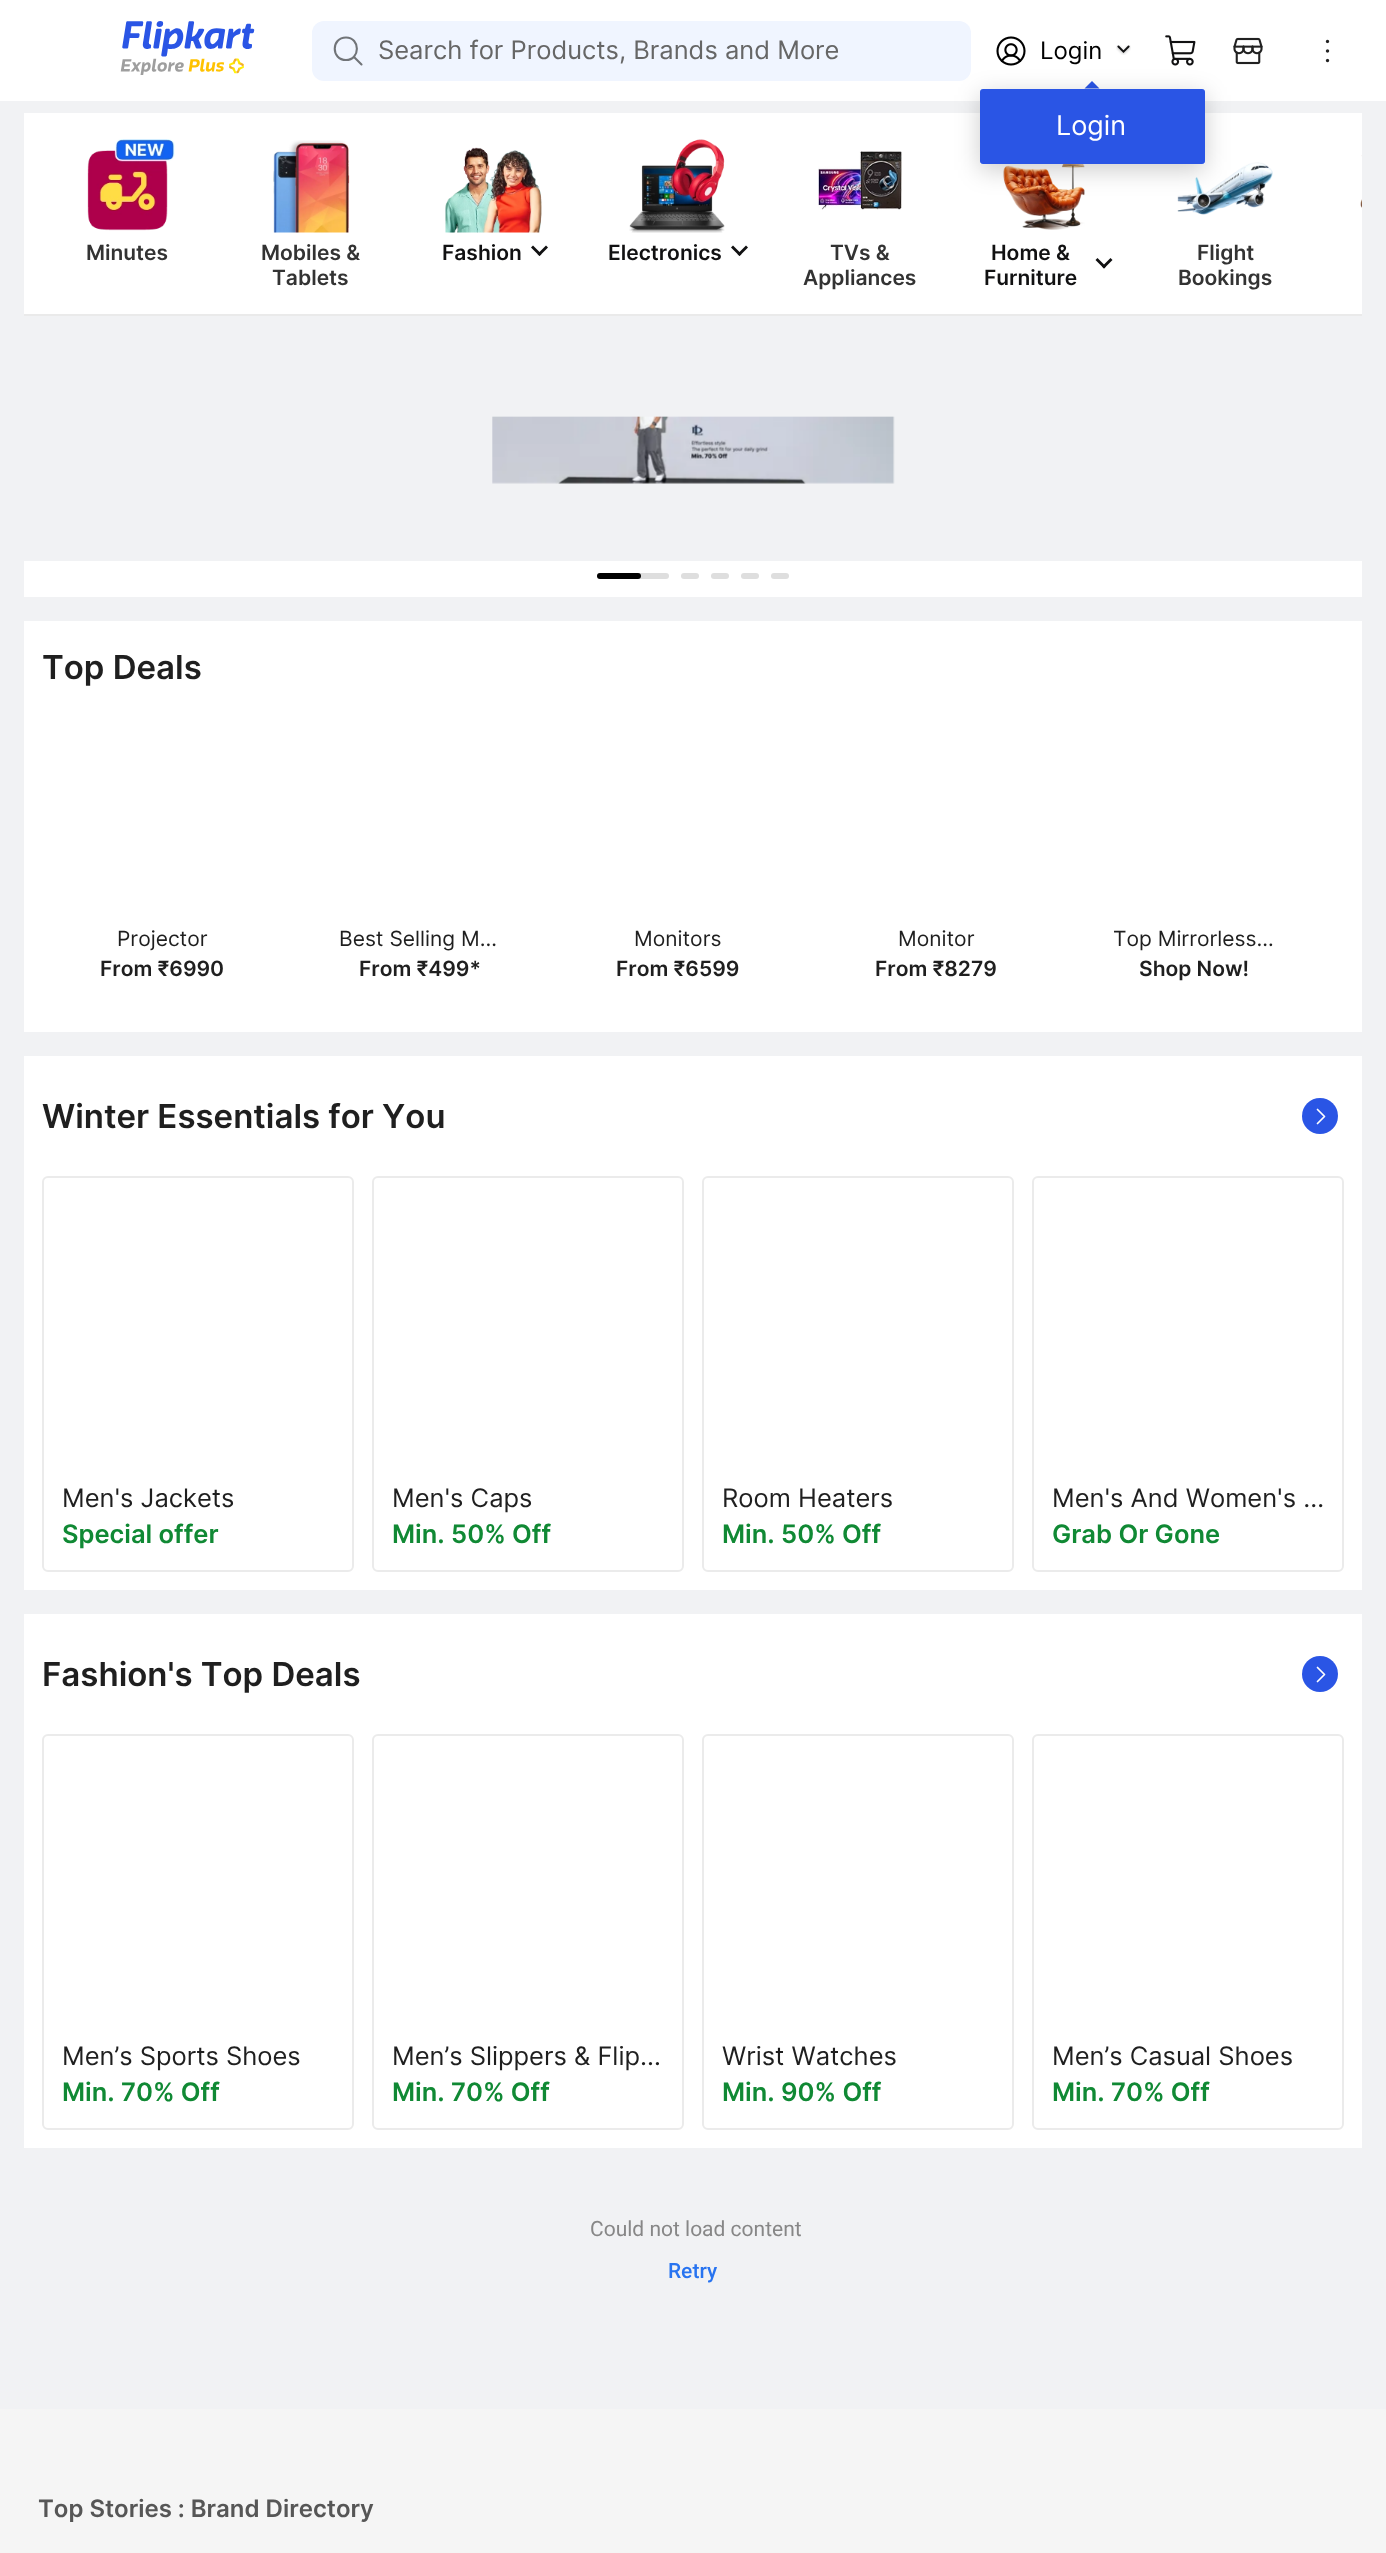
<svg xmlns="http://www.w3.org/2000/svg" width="1386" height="2553">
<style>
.a{font:25.5px Inter;fill:#666}
.b{font:24px Inter;fill:#000}
.c{font:27px Inter;fill:#fff}
.d{font:600 21px Inter;fill:#333}
.e{font:600 21px Inter;fill:#111112}
.f{font:600 33px Inter;fill:#1f1f1f}
.g{font:21px Inter;fill:#1f1f1f}
.h{font:600 21px Inter;fill:#1f1f1f}
.i{font:25.5px Inter;fill:#1f1f1f}
.j{font:600 25.5px Inter;fill:#108934}
.k{font:21px Roboto;fill:#878787}
.l{font:500 21px Roboto;fill:#2874f0}
.m{font:600 24px Inter;fill:#565656}
</style>
<rect width="100%" height="100%" fill="#f1f2f4"/>
<path fill="#fff" d="M0 0h1386v101H0z"/>
<image href="1.png" x="120" y="21" width="135" height="54"/>
<rect fill="#f0f5ff" x="312" y="21" width="659" height="60" rx="12"/>
<path fill="none" stroke="#717478" stroke-width="2.1" stroke-linecap="round" stroke-linejoin="round" d="M346 60c14.5 0 14.5-22.5 0-22.5c-15 0-15 22.5 0 22.5zm8-3l7.5 7.5"/>
<image href="2.png" x="996" y="36" width="30" height="30"/>
<image href="3.png" x="1116" y="45" width="15" height="10"/>
<path fill="#2a55e5" d="M1099.5 88.5h-15l7.5-7.5z"/>
<image href="4.png" x="1165" y="35" width="31" height="31"/>
<image href="5.png" x="1233" y="37" width="30" height="28"/>
<path fill="#fff" d="M24 113h1338v201H24z"/>
<image href="13.png" x="1003" y="164" width="82" height="66"/>
<image href="14.png" x="1177" y="162" width="96" height="53"/>
<path fill="#00000033" filter="blur(12px)" d="M980 95h225v75H980z"/>
<path fill="#fff" d="M980 89h225v75H980z"/>
<rect fill="#2a55e5" x="980" y="89" width="225" height="75" rx="3"/>
<image href="6.png" x="1325" y="39" width="5" height="24"/>
<image href="7.png" x="1360" y="155" width="2" height="53"/>
<image href="8.png" x="87" y="139" width="88" height="92"/>
<image href="9.png" x="273" y="140" width="77" height="93"/>
<image href="10.png" x="445" y="147" width="97" height="86"/>
<path fill="#111112" d="M546 245.5l2 2l-8.5 8.5l-2-2z"/>
<path fill="#111112" d="M533 245.5l8.5 8.5l-2 2l-8.5-8.5z"/>
<image href="11.png" x="629" y="139" width="96" height="94"/>
<path fill="#111112" d="M746 245.5l2 2l-8.5 8.5l-2-2z"/>
<path fill="#111112" d="M733 245.5l8.5 8.5l-2 2l-8.5-8.5z"/>
<image href="12.png" x="818" y="151" width="84" height="59"/>
<path fill="#111112" d="M1110.5 258l2 2l-8.5 8.5l-2-2z"/>
<path fill="#111112" d="M1097.5 258l8.5 8.5l-2 2l-8.5-8.5z"/>
<path fill="#eaeaea" d="M24 314h1338v2H24z"/>
<path fill="#fff" d="M24 561h1338v36H24z"/>
<image href="15.png" x="492" y="416" width="403" height="68"/>
<rect fill="#dedede" x="597" y="573" width="72" height="6" rx="3"/>
<rect fill="#000" x="597" y="573" width="44" height="6" rx="3"/>
<rect fill="#dedede" x="681" y="573" width="18" height="6" rx="3"/>
<rect fill="#dedede" x="711" y="573" width="18" height="6" rx="3"/>
<rect fill="#dedede" x="741" y="573" width="18" height="6" rx="3"/>
<rect fill="#dedede" x="771" y="573" width="18" height="6" rx="3"/>
<path fill="#fff" d="M24 621h1338v411H24z"/>
<path fill="#fff" d="M24 1056h1338v534H24z"/>
<circle fill="#2a55e5" cx="1320" cy="1116" r="18"/>
<path fill="none" stroke="#fff" stroke-width="1.7" stroke-linecap="round" stroke-linejoin="round" d="M1317.5 1109.5l7 7l-7 7"/>
<rect fill="none" stroke="#ebebeb" stroke-width="2" x="43" y="1177" width="310" height="394" rx="5"/>
<rect fill="none" stroke="#ebebeb" stroke-width="2" x="373" y="1177" width="310" height="394" rx="5"/>
<rect fill="none" stroke="#ebebeb" stroke-width="2" x="703" y="1177" width="310" height="394" rx="5"/>
<rect fill="none" stroke="#ebebeb" stroke-width="2" x="1033" y="1177" width="310" height="394" rx="5"/>
<path fill="#fff" d="M24 1614h1338v534H24z"/>
<circle fill="#2a55e5" cx="1320" cy="1674" r="18"/>
<path fill="none" stroke="#fff" stroke-width="1.7" stroke-linecap="round" stroke-linejoin="round" d="M1317.5 1667.5l7 7l-7 7"/>
<rect fill="none" stroke="#ebebeb" stroke-width="2" x="43" y="1735" width="310" height="394" rx="5"/>
<rect fill="none" stroke="#ebebeb" stroke-width="2" x="373" y="1735" width="310" height="394" rx="5"/>
<rect fill="none" stroke="#ebebeb" stroke-width="2" x="703" y="1735" width="310" height="394" rx="5"/>
<rect fill="none" stroke="#ebebeb" stroke-width="2" x="1033" y="1735" width="310" height="394" rx="5"/>
<path fill="#f5f5f5" d="M0 2409h1386v144H0z"/>
<text class="a" x="378" y="59">Search for Products, Brands and More</text>
<text class="b" x="1040" y="59">Login</text>
<text class="c" x="1056" y="135">Login</text>
<text class="d" x="86" y="260">Minutes</text>
<text class="d" x="261" y="260">Mobiles &amp;</text>
<text class="d" x="272" y="285">Tablets</text>
<text class="e" x="442" y="260">Fashion</text>
<text class="e" x="608" y="260">Electronics</text>
<text class="d" x="830" y="260">TVs &amp;</text>
<text class="d" x="803" y="285">Appliances</text>
<text class="e" x="991" y="260">Home &amp;</text>
<text class="e" x="984" y="285">Furniture</text>
<text class="d" x="1197" y="260">Flight</text>
<text class="d" x="1178" y="285">Bookings</text>
<text class="f" x="42" y="679">Top Deals</text>
<text class="g" x="117" y="946">Projector</text>
<text class="h" x="100" y="976">From ₹6990</text>
<text class="g" x="339" y="946">Best Selling M…</text>
<text class="h" x="359" y="976">From ₹499*</text>
<text class="g" x="634" y="946">Monitors</text>
<text class="h" x="616" y="976">From ₹6599</text>
<text class="g" x="898" y="946">Monitor</text>
<text class="h" x="875" y="976">From ₹8279</text>
<text class="g" x="1113" y="946">Top Mirrorless…</text>
<text class="h" x="1139" y="976">Shop Now!</text>
<text class="f" x="42" y="1128">Winter Essentials for You</text>
<text class="i" x="62" y="1507">Men's Jackets</text>
<text class="j" x="62" y="1543">Special offer</text>
<text class="i" x="392" y="1507">Men's Caps</text>
<text class="j" x="392" y="1543">Min. 50% Off</text>
<text class="i" x="722" y="1507">Room Heaters</text>
<text class="j" x="722" y="1543">Min. 50% Off</text>
<text class="i" x="1052" y="1507">Men's And Women's …</text>
<text class="j" x="1052" y="1543">Grab Or Gone</text>
<text class="f" x="42" y="1686">Fashion's Top Deals</text>
<text class="i" x="62" y="2065">Men’s Sports Shoes</text>
<text class="j" x="62" y="2101">Min. 70% Off</text>
<text class="i" x="392" y="2065">Men’s Slippers &amp; Flip…</text>
<text class="j" x="392" y="2101">Min. 70% Off</text>
<text class="i" x="722" y="2065">Wrist Watches</text>
<text class="j" x="722" y="2101">Min. 90% Off</text>
<text class="i" x="1052" y="2065">Men’s Casual Shoes</text>
<text class="j" x="1052" y="2101">Min. 70% Off</text>
<text class="k" x="590" y="2236">Could not load content</text>
<text class="l" x="668" y="2278">Retry</text>
<text class="m" x="38" y="2517">Top Stories : Brand Directory</text>
</svg>
